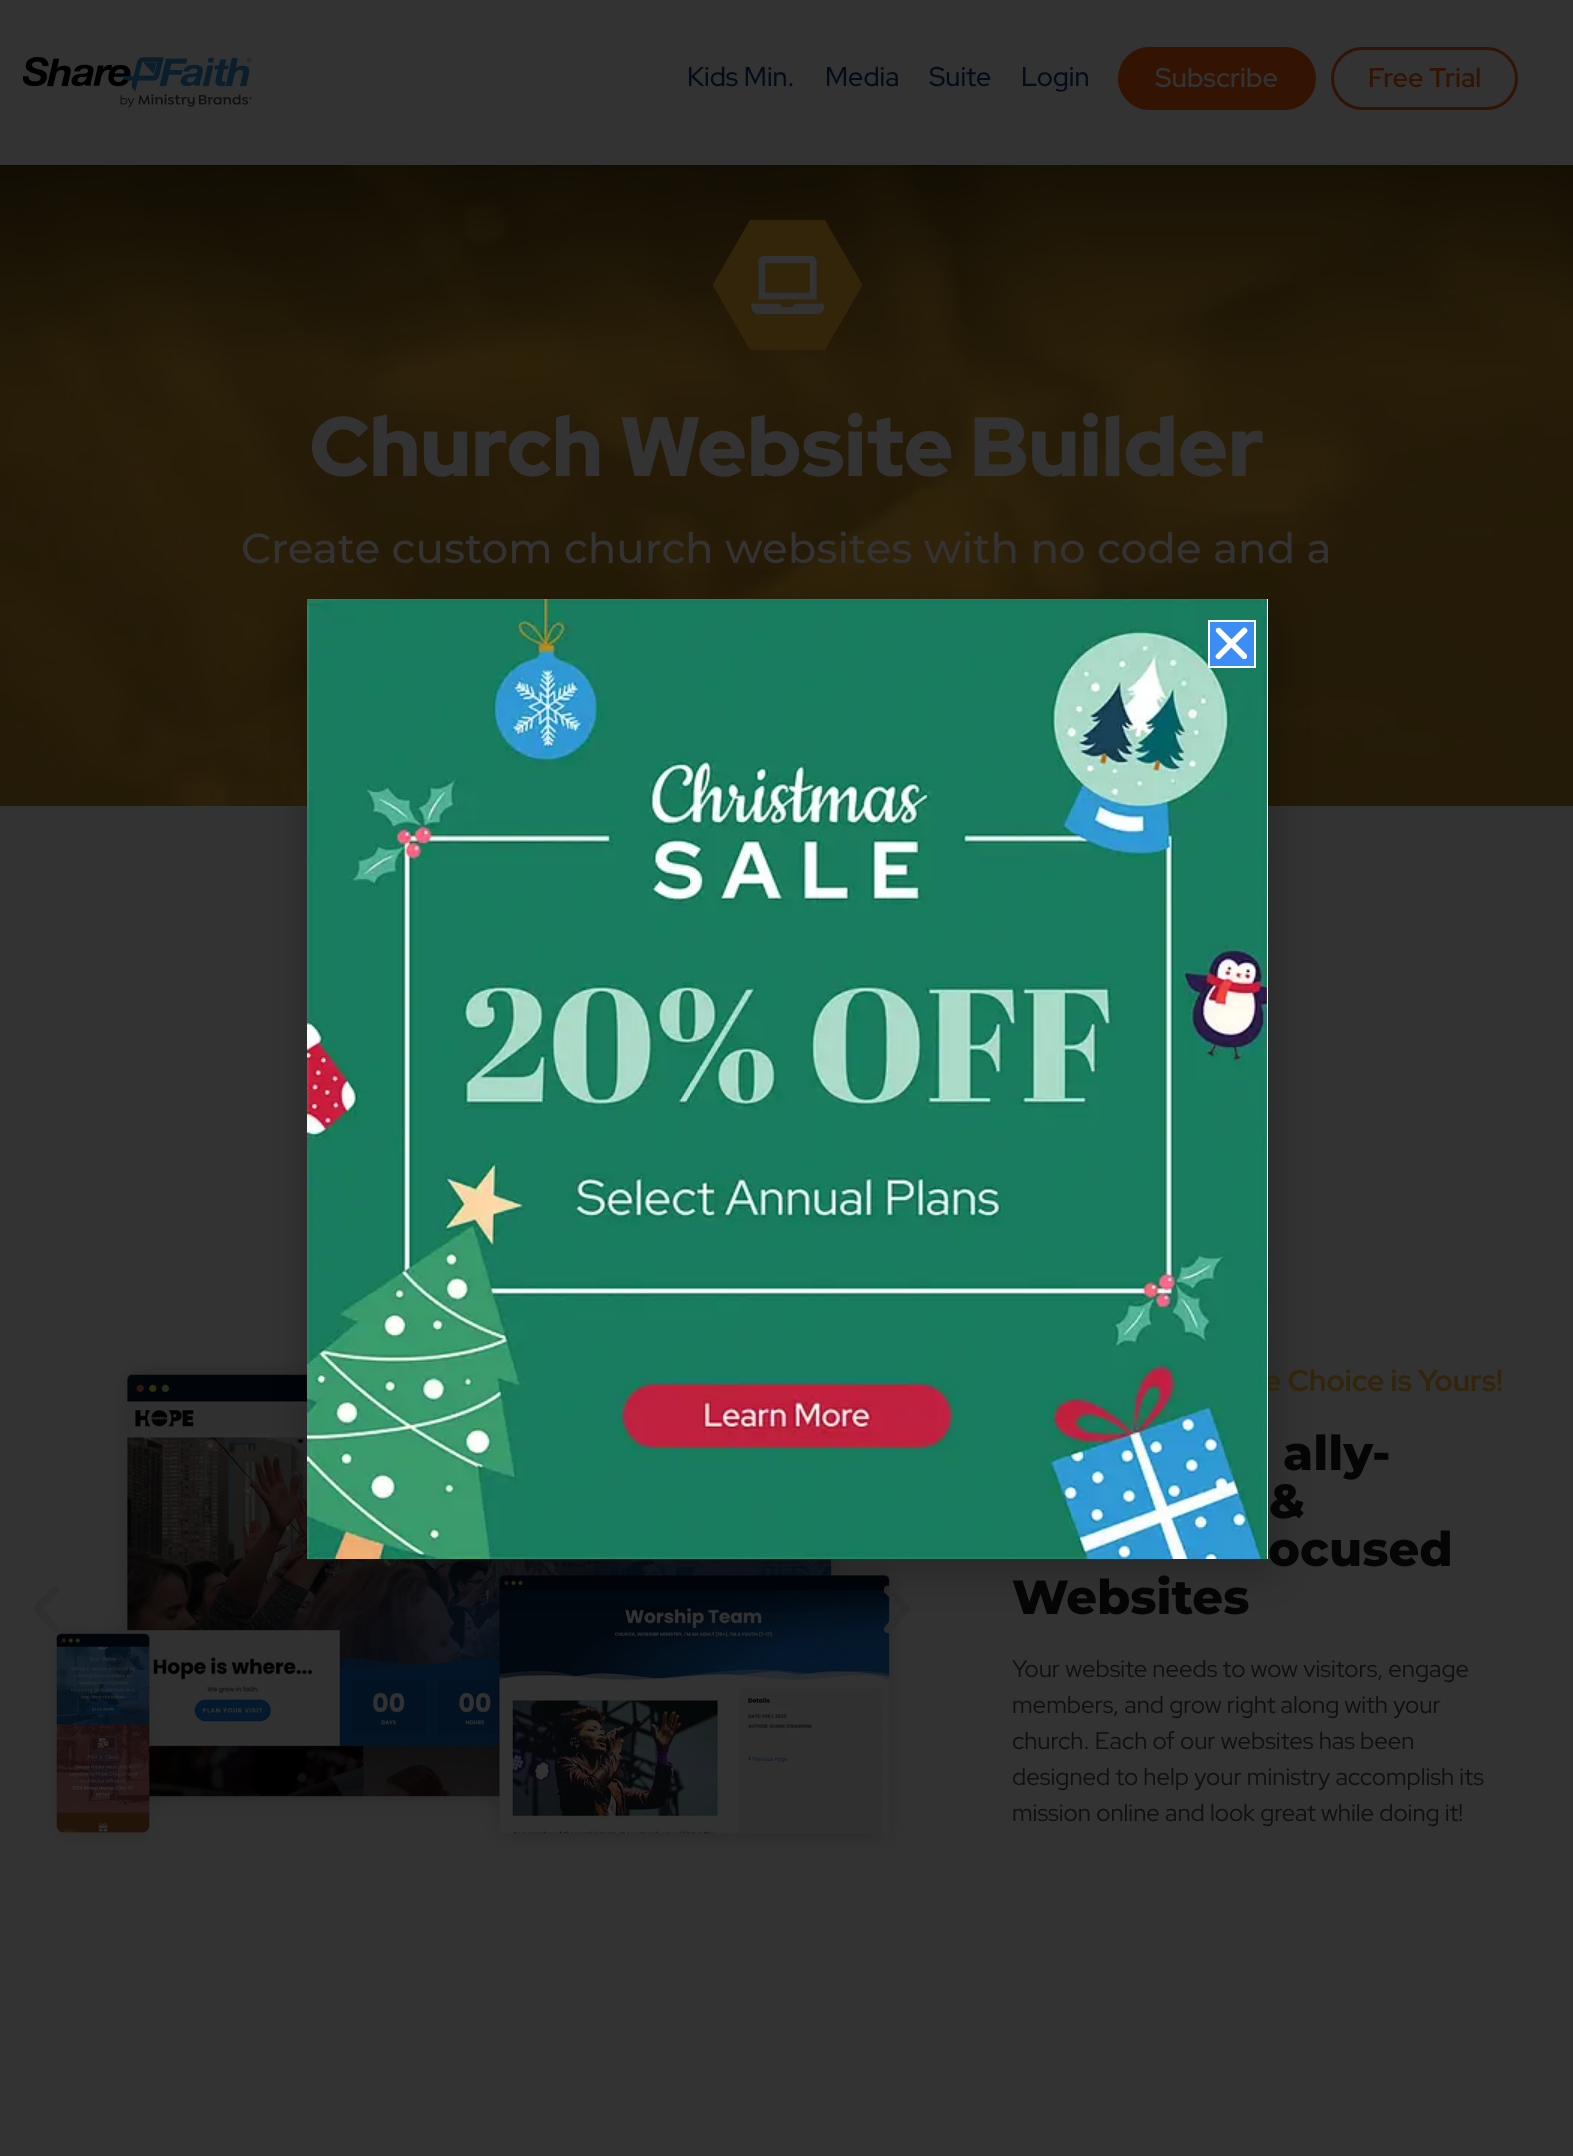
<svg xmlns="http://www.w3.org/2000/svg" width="1573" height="2156">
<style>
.a{font:500 27px Red Hat Display;fill:#030c1a}
.b{font:600 27px Red Hat Display;fill:#333}
.c{font:600 27px Red Hat Display;fill:#331302}
.d{font:900 84px Red Hat Display;fill:#333}
.e{font:500 42px Montserrat;fill:#333}
.f{font:bold 30px Red Hat Display;fill:#32250a}
.g{font:800 48px Montserrat;fill:#050505}
.h{font:24px Red Hat Display;fill:#101011}
</style>
<rect width="100%" height="100%" fill="#333"/>
<image href="1.png" x="23" y="57" width="229" height="51"/>
<rect fill="#331302" stroke="#331302" stroke-width="3" x="1119.5" y="48.5" width="195" height="60" rx="30"/>
<rect fill="none" stroke="#331302" stroke-width="3" x="1332.5" y="48.5" width="184" height="60" rx="30"/>
<image href="2.png" x="0" y="165" width="1573" height="641"/>
<image href="3.png" x="713" y="220" width="150" height="130"/>
<image href="4.png" x="47" y="1360" width="855" height="489"/>
<image href="5.png" x="33" y="1586" width="27" height="47"/>
<path fill="#2f2f2fe6" d="M909 1612c4-4-1-7-3-9l-12-13c-2-2-7-7-10-2c0 1 0 3 0 4l17 17c-3 3-17 17-17 20c-1 3 3 5 6 4z"/>
<path fill="#00000033" filter="blur(17px)" d="M306 606h969v969H306z"/>
<text class="a" x="687" y="86">Kids Min.</text>
<text class="a" x="825" y="86">Media</text>
<text class="a" x="929" y="86">Suite</text>
<text class="a" x="1021" y="86">Login</text>
<text class="b" x="1155" y="87">Subscribe</text>
<text class="c" x="1368" y="87">Free Trial</text>
<text class="d" x="309" y="476">Church Website Builder</text>
<text class="e" x="241" y="563">Create custom church websites with no code and a</text>
<text class="f" x="1264" y="1391">e Choice is Yours!</text>
<text class="g" x="1283" y="1470">ally-</text>
<text class="g" x="1269" y="1518">&amp;</text>
<text class="g" x="1268" y="1566">ocused</text>
<text class="g" x="1012" y="1614">Websites</text>
<text class="h" x="1012" y="1677">Your website needs to wow visitors, engage</text>
<text class="h" x="1012" y="1713">members, and grow right along with your</text>
<text class="h" x="1012" y="1749">church. Each of our websites has been</text>
<text class="h" x="1012" y="1785">designed to help your ministry accomplish its</text>
<text class="h" x="1012" y="1821">mission online and look great while doing it!</text>
<path fill="#fff" d="M1267 599h1v960H1267z"/>
<image href="6.png" x="307" y="599" width="960" height="960"/>
<path fill="#3c8df6" stroke="#fff" stroke-width="2" d="M1209 621h46v46H1209z"/>
<image href="7.png" x="1215" y="627" width="33" height="33"/>
</svg>
